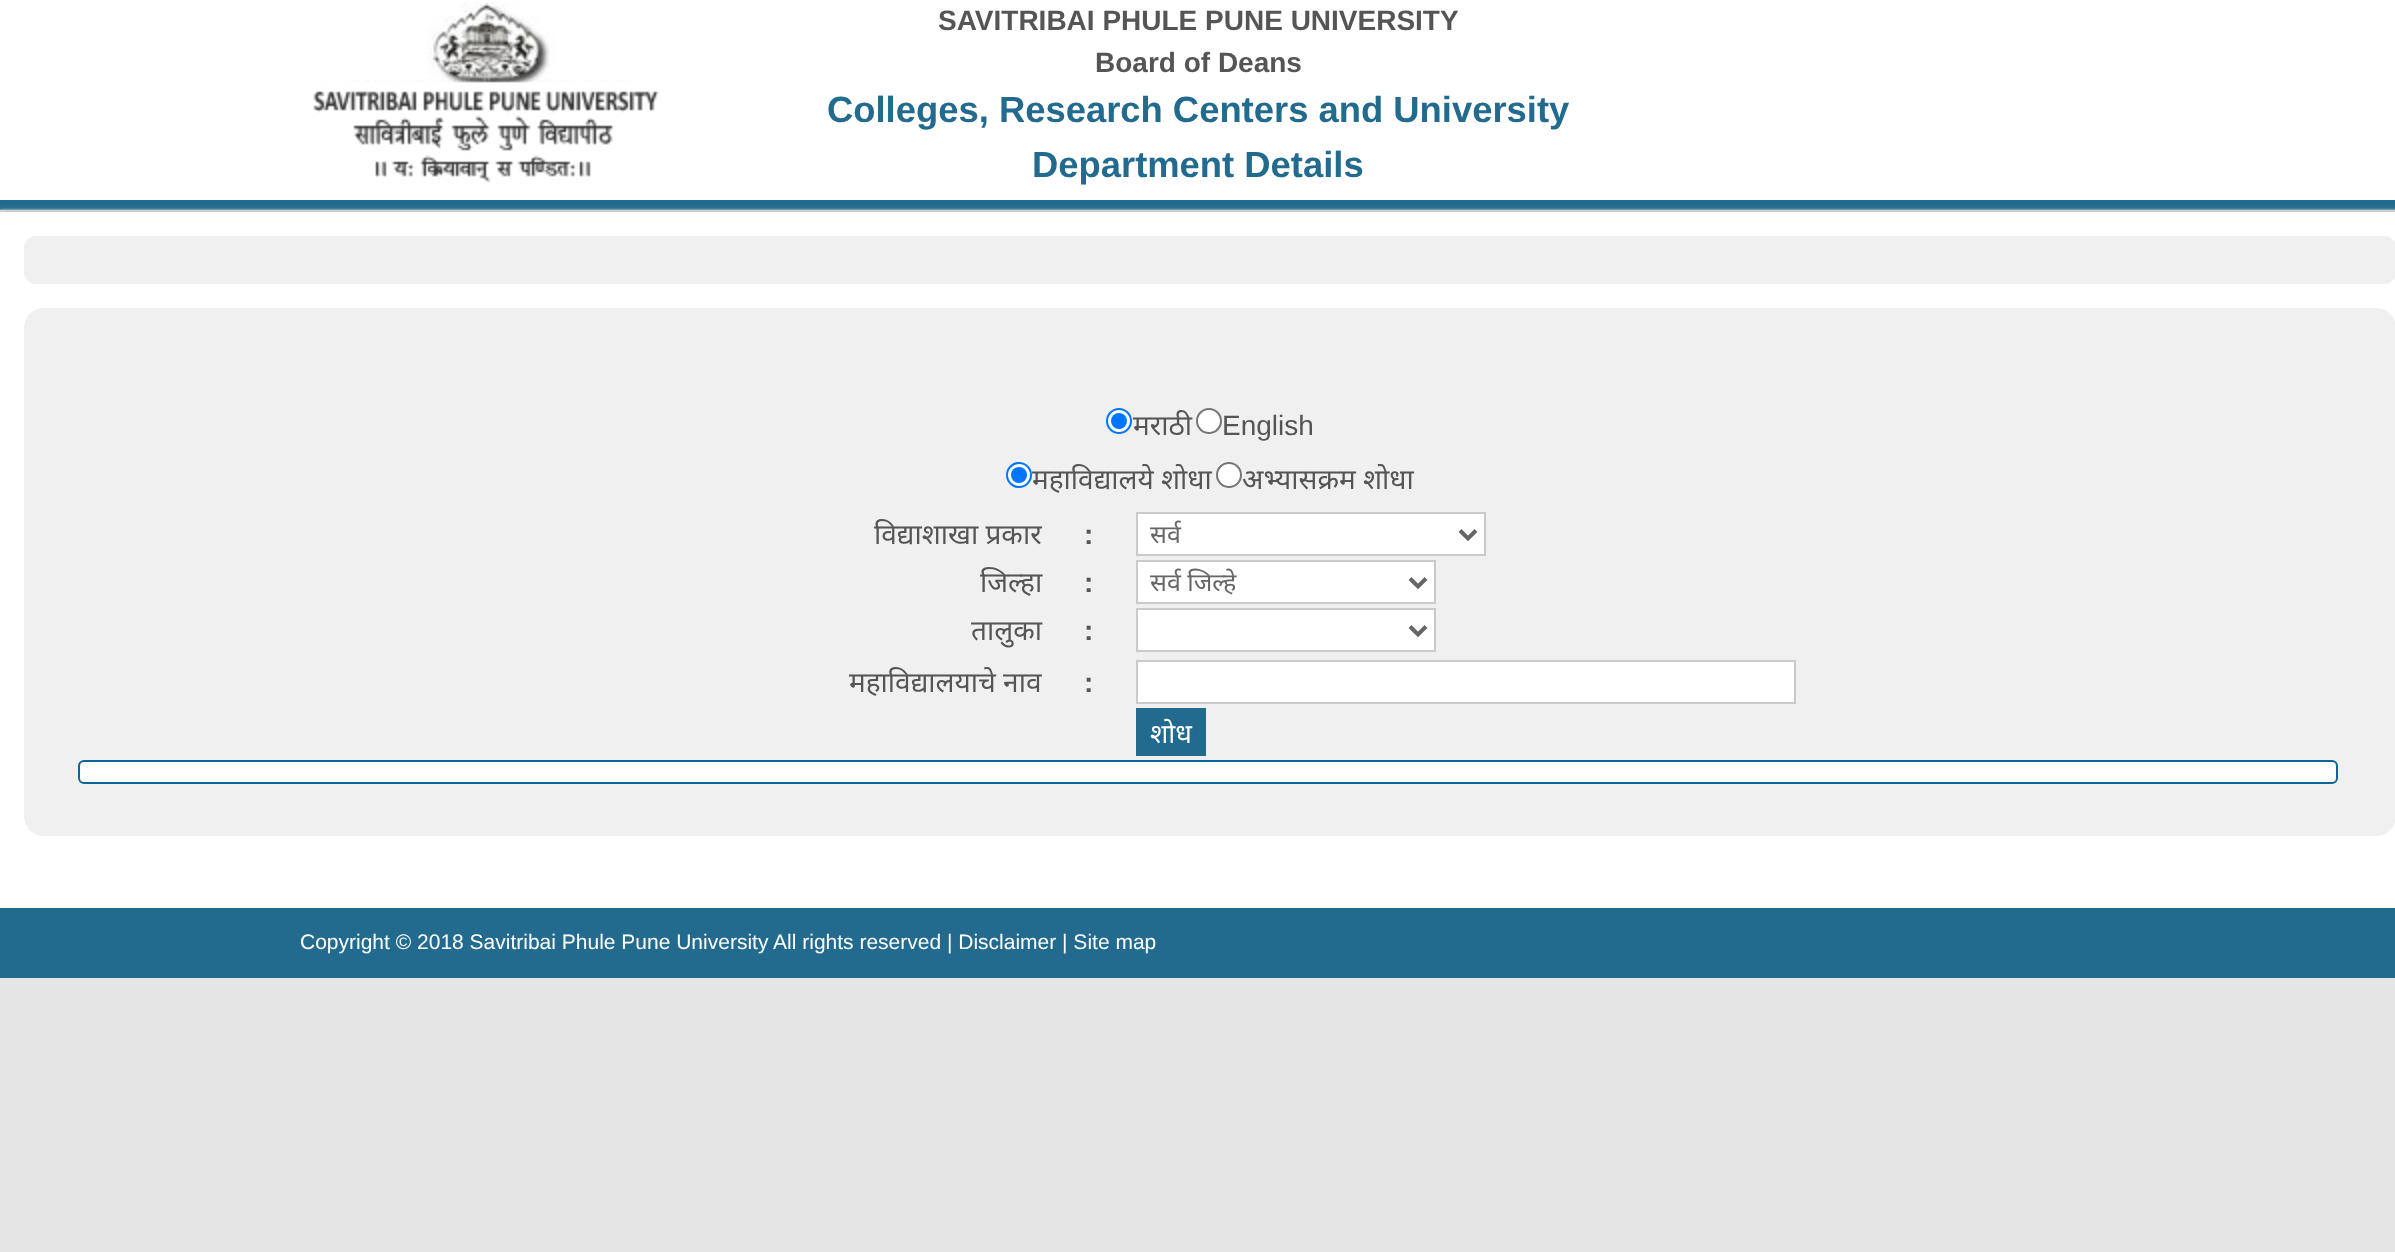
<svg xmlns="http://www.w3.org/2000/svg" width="2395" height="1252">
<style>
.a{font:bold 28px Liberation Sans;fill:#555}
.b{font:bold 36.4px Liberation Sans;fill:#236b8e}
.c{font:28px Noto Sans;fill:#555}
.d{font:28px Liberation Sans;fill:#555}
.e{font:25px Noto Sans;fill:#666}
.f{font:27px Noto Sans;fill:#fff}
.g{font:21px Liberation Sans;fill:#fff}
</style>
<rect width="100%" height="100%" fill="#e5e5e5"/>
<path fill="#fff" d="M0 0h2395v200H0z"/>
<path fill="#236b8e" d="M0 200h2395v10H0z"/>
<image href="1.png" x="313" y="2" width="346" height="181"/>
<path fill="#fbfbfb" filter="blur(1px)" d="M0 210h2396v2H0z"/>
<path fill="#dcdbdb" d="M0 210h2395v2H0z"/>
<path fill="#a7a7a7" filter="blur(5px)" d="M0 214h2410v696H0z"/>
<path fill="#fff" d="M0 212h2395v696H0z"/>
<rect fill="#f0f0f0" x="24" y="236" width="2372" height="48" rx="12"/>
<rect fill="#f0f0f0" x="24" y="308" width="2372" height="528" rx="20"/>
<circle fill="#fff" stroke="#0075ff" stroke-width="2" cx="1119" cy="421" r="12"/>
<circle fill="#0075ff" cx="1119" cy="421" r="8"/>
<circle fill="#fff" stroke="#767676" stroke-width="2" cx="1209" cy="421" r="12"/>
<circle fill="#fff" stroke="#0075ff" stroke-width="2" cx="1019" cy="475" r="12"/>
<circle fill="#0075ff" cx="1019" cy="475" r="8"/>
<circle fill="#fff" stroke="#767676" stroke-width="2" cx="1229" cy="475" r="12"/>
<path fill="#fff" stroke="#c9cbcb" stroke-width="2" d="M1137 513h348v42H1137z"/>
<path fill="none" stroke="#666" stroke-width="4" d="M1460 530.5l8 8l8-8"/>
<path fill="#fff" stroke="#c9cbcb" stroke-width="2" d="M1137 561h298v42H1137z"/>
<path fill="none" stroke="#666" stroke-width="4" d="M1410 578.5l8 8l8-8"/>
<path fill="#fff" stroke="#c9cbcb" stroke-width="2" d="M1137 609h298v42H1137z"/>
<path fill="none" stroke="#666" stroke-width="4" d="M1410 626.5l8 8l8-8"/>
<path fill="#fff" stroke="#c9cbcb" stroke-width="2" d="M1137 661h658v42H1137z"/>
<path fill="#236b8e" d="M1136 708h70v48H1136z"/>
<rect fill="#fefefe" stroke="#0d6599" stroke-width="2" x="79" y="761" width="2258" height="22" rx="5"/>
<path fill="#236b8e" d="M0 908h2395v70H0z"/>
<text class="a" x="938" y="30">SAVITRIBAI PHULE PUNE UNIVERSITY</text>
<text class="a" x="1095" y="72">Board of Deans</text>
<text class="b" x="827" y="122">Colleges, Research Centers and University</text>
<text class="b" x="1032" y="177">Department Details</text>
<text class="c" x="1133" y="435">मराठी</text>
<text class="d" x="1222" y="435">English</text>
<text class="c" x="1032" y="489">महाविद्यालये शोधा</text>
<text class="c" x="1242" y="489">अभ्यासक्रम शोधा</text>
<text class="c" x="874" y="544">विद्याशाखा प्रकार</text>
<text class="a" x="1084" y="544">:</text>
<text class="e" x="1150" y="543">सर्व</text>
<text class="c" x="980" y="592">जिल्हा</text>
<text class="a" x="1084" y="592">:</text>
<text class="e" x="1150" y="591">सर्व जिल्हे</text>
<text class="c" x="971" y="640">तालुका</text>
<text class="a" x="1084" y="640">:</text>
<text class="c" x="849" y="692">महाविद्यालयाचे नाव</text>
<text class="a" x="1084" y="692">:</text>
<text class="f" x="1150" y="743">शोध</text>
<text class="g" x="300" y="949">Copyright © 2018 Savitribai Phule Pune University All rights reserved | Disclaimer | Site map</text>
</svg>
